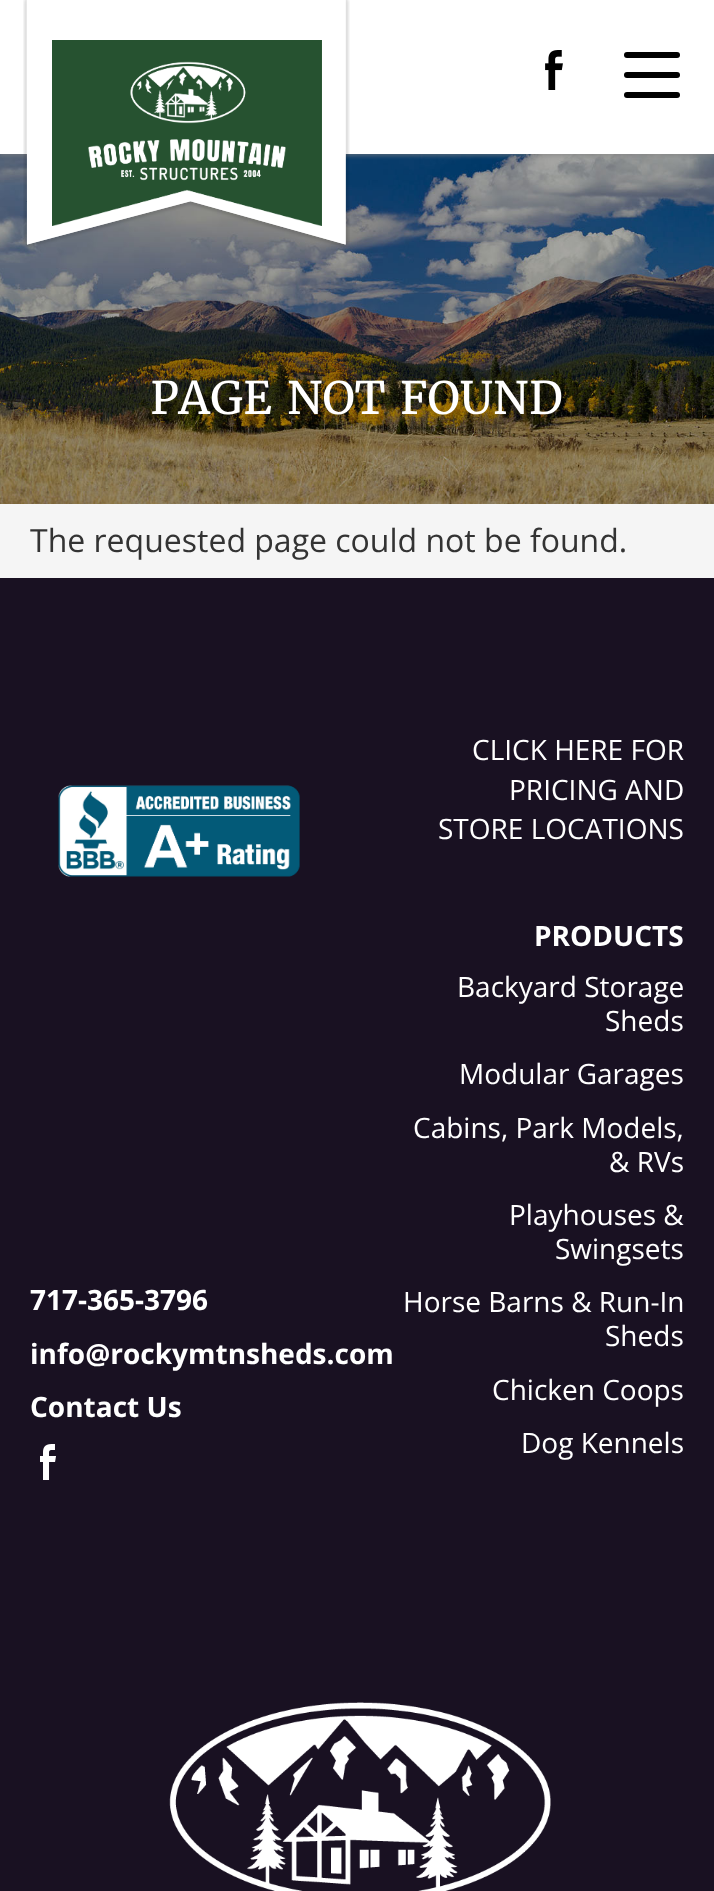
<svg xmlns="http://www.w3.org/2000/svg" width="714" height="1891">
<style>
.a{font:44.75px Merriweather;fill:#fff}
.b{font:32px Open Sans;fill:#333}
.c{font:bold 28px Open Sans;fill:#fff}
.d{font:28px Open Sans;fill:#fff}
</style>
<rect width="100%" height="100%" fill="#f5f5f5"/>
<image href="4.png" x="0" y="154" width="714" height="350"/>
<path fill="#80808099" filter="blur(2px)" d="M0 2h714v154H0z"/>
<path fill="#fff" d="M0 0h714v154H0z"/>
<image href="1.png" x="23" y="0" width="327" height="248"/>
<image href="2.png" x="52" y="40" width="270" height="186"/>
<image href="3.png" x="545" y="50" width="18" height="40"/>
<rect fill="#000" x="624" y="52" width="56" height="6" rx="3"/>
<rect fill="#000" x="624" y="72" width="56" height="6" rx="3"/>
<rect fill="#000" x="624" y="92" width="56" height="6" rx="3"/>
<path fill="#191122" d="M0 578h714v1313H0z"/>
<image href="5.png" x="58" y="785" width="242" height="92"/>
<image href="6.png" x="40" y="1444" width="16" height="36"/>
<image href="7.png" x="169" y="1702" width="382" height="189"/>
<text class="a" x="150" y="414">PAGE NOT FOUND</text>
<text class="b" x="30" y="552">The requested page could not be found.</text>
<text class="c" x="30" y="1310">717-365-3796</text>
<text class="c" x="30" y="1364">info@rockymtnsheds.com</text>
<text class="c" x="30" y="1417">Contact Us</text>
<text class="d" x="472" y="760">CLICK HERE FOR</text>
<text class="d" x="509" y="800">PRICING AND</text>
<text class="d" x="438" y="839">STORE LOCATIONS</text>
<text class="c" x="534" y="946">PRODUCTS</text>
<text class="d" x="457" y="997">Backyard Storage</text>
<text class="d" x="605" y="1031">Sheds</text>
<text class="d" x="459" y="1084">Modular Garages</text>
<text class="d" x="413" y="1138">Cabins, Park Models,</text>
<text class="d" x="609" y="1172">&amp; RVs</text>
<text class="d" x="509" y="1225">Playhouses &amp;</text>
<text class="d" x="555" y="1259">Swingsets</text>
<text class="d" x="403" y="1312">Horse Barns &amp; Run-In</text>
<text class="d" x="605" y="1346">Sheds</text>
<text class="d" x="492" y="1400">Chicken Coops</text>
<text class="d" x="521" y="1453">Dog Kennels</text>
</svg>
